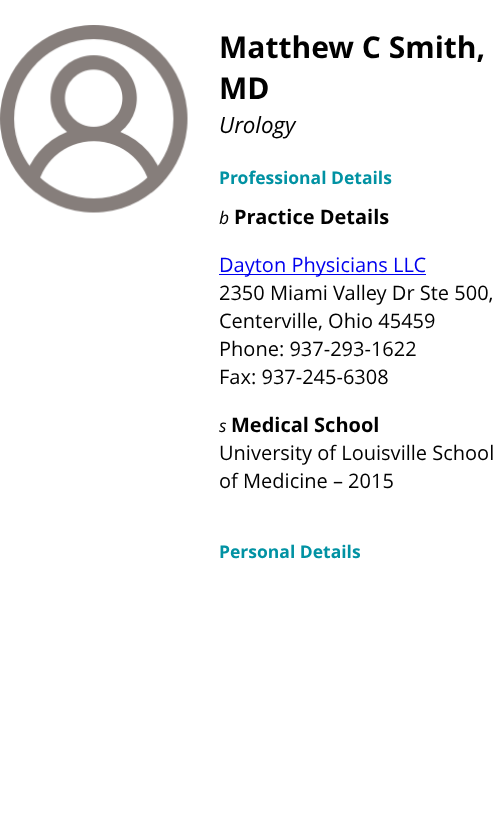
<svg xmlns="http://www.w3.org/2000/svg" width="503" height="816">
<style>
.a{font:bold 30px Open Sans;fill:#000}
.b{font:italic 22.5px Open Sans;fill:#000}
.c{font:bold 17.5px Open Sans;fill:#0192a3}
.d{font:italic 17.5px Open Sans;fill:#000}
.e{font:bold 20px Open Sans;fill:#000}
.f{font:20px Open Sans;fill:#00e}
.g{font:20px Open Sans;fill:#000}
</style>
<rect width="100%" height="100%" fill="#fff"/>
<image href="1.png" x="0" y="25" width="188" height="188"/>
<path fill="#00e" d="M219 274h207v1H219z"/>
<text class="a" x="219" y="58">Matthew C Smith,</text>
<text class="a" x="219" y="99">MD</text>
<text class="b" x="219" y="133">Urology</text>
<text class="c" x="219" y="184">Professional Details</text>
<text class="d" x="219" y="224">b</text>
<text class="e" x="234" y="224">Practice Details</text>
<text class="f" x="219" y="272">Dayton Physicians LLC</text>
<text class="g" x="219" y="300">2350 Miami Valley Dr Ste 500,</text>
<text class="g" x="219" y="328">Centerville, Ohio 45459</text>
<text class="g" x="219" y="356">Phone: 937-293-1622</text>
<text class="g" x="219" y="384">Fax: 937-245-6308</text>
<text class="d" x="219" y="432">s</text>
<text class="e" x="231" y="432">Medical School</text>
<text class="g" x="219" y="460">University of Louisville School</text>
<text class="g" x="219" y="488">of Medicine – 2015</text>
<text class="c" x="219" y="558">Personal Details</text>
</svg>
